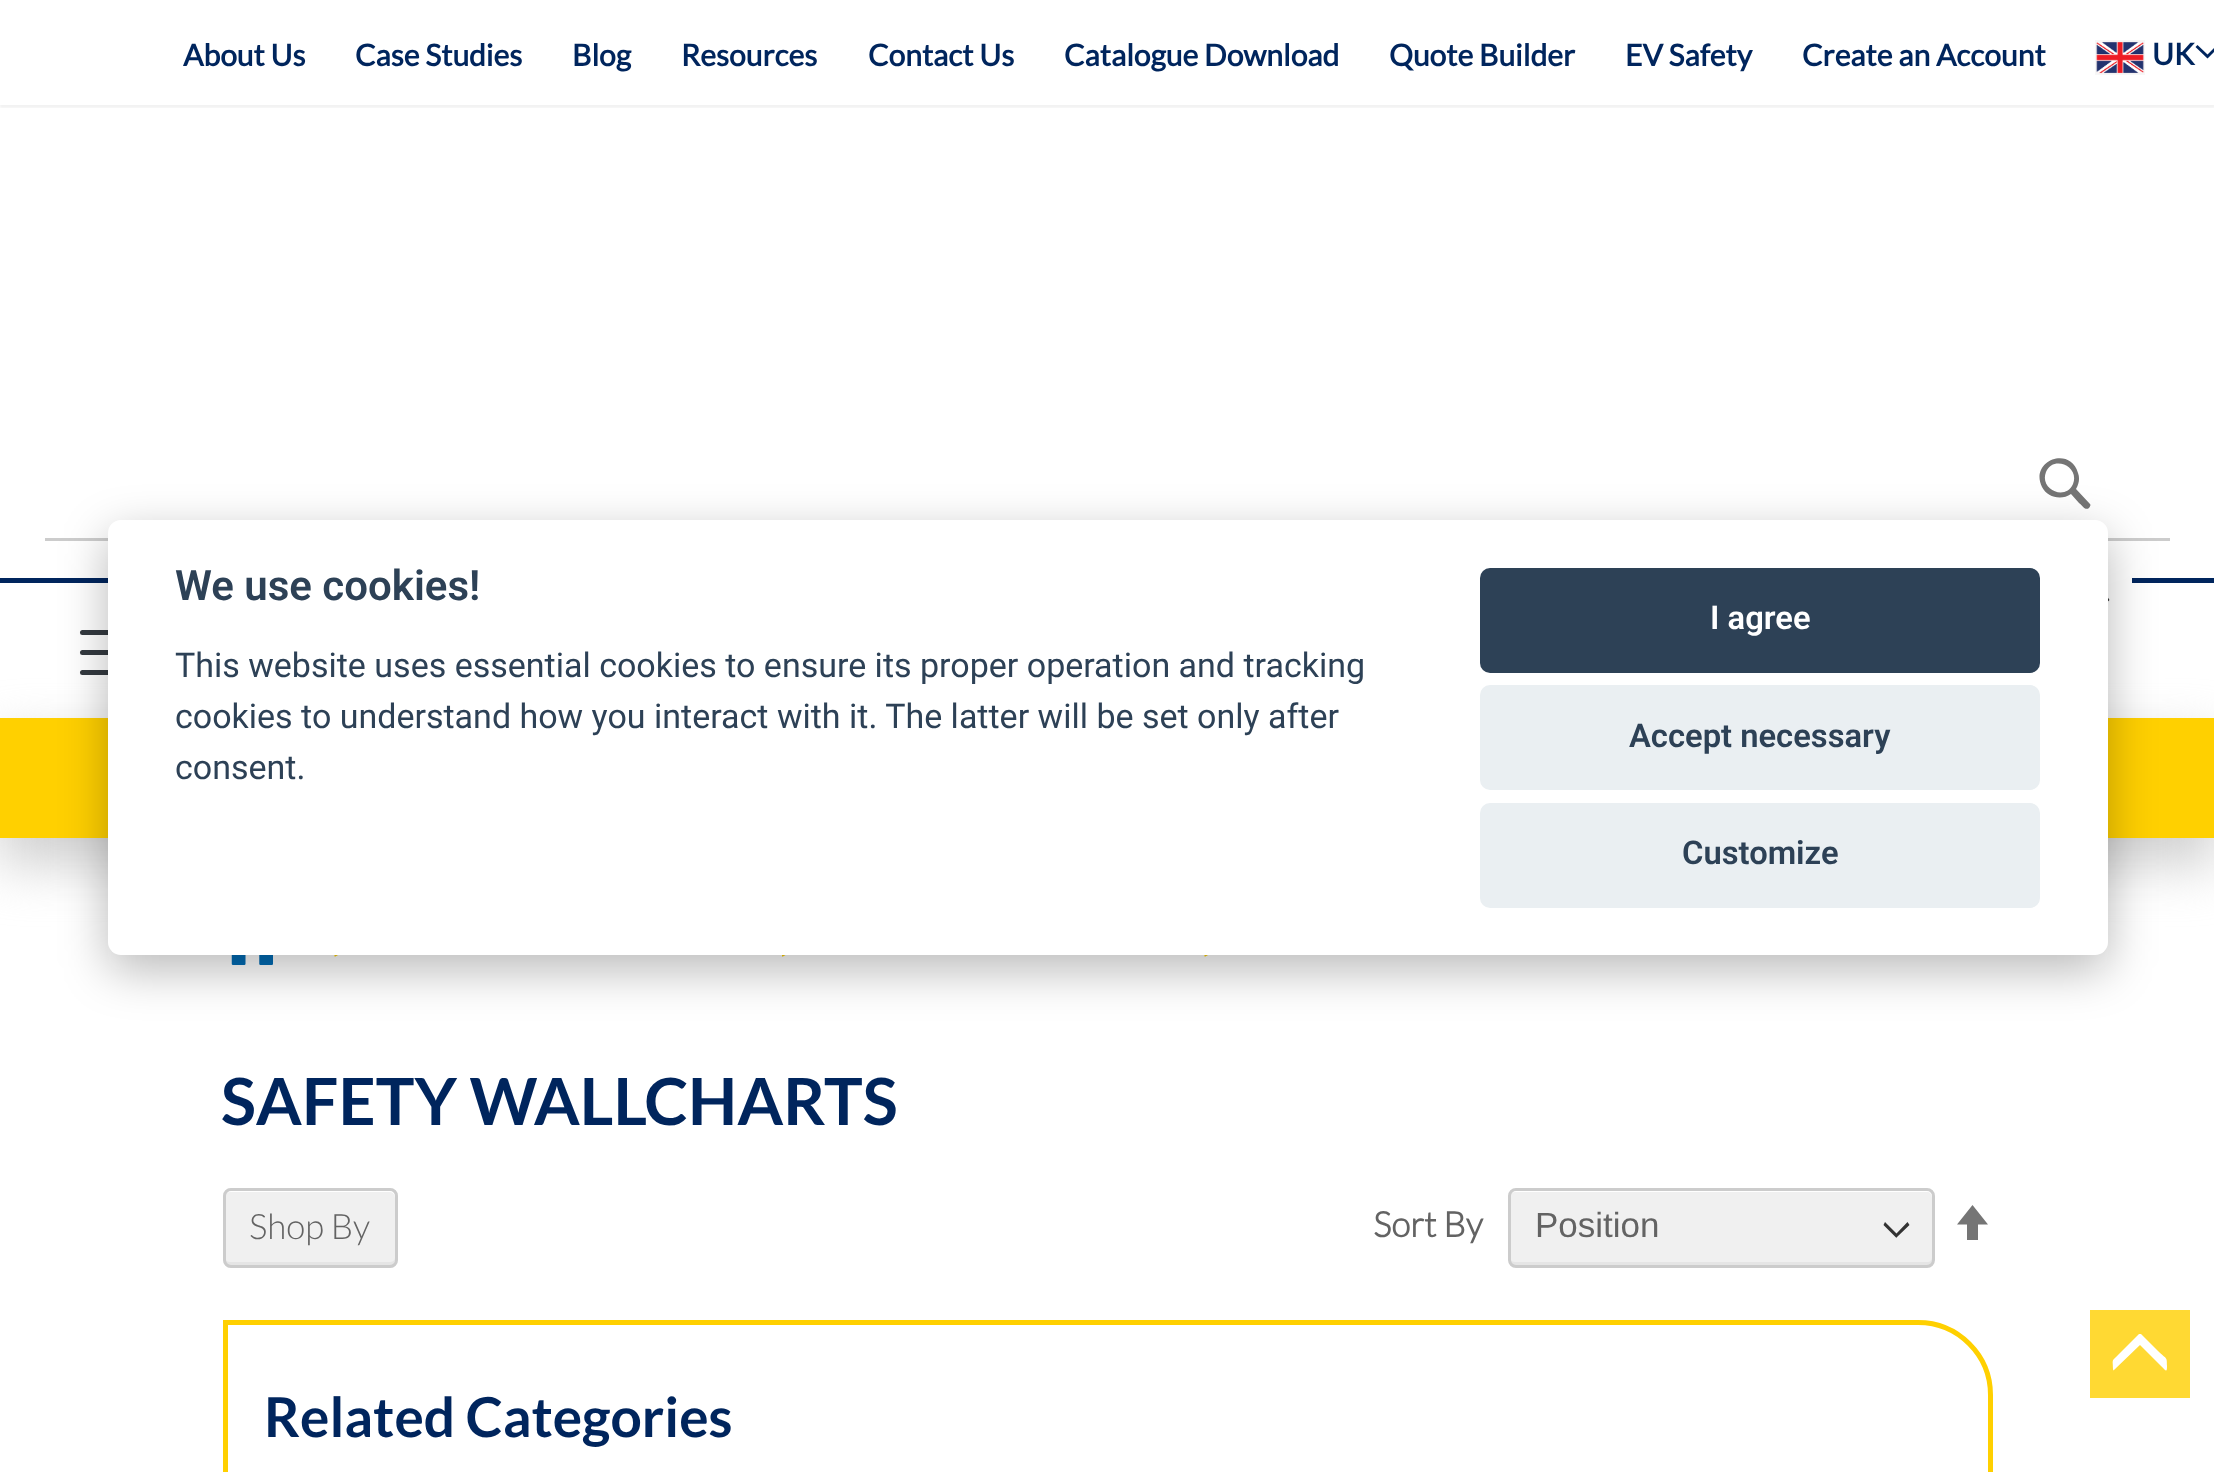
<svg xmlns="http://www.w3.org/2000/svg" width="2214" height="1472">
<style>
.a{font:bold 30px 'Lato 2';fill:#00255d}
.b{font:bold 65px Lato;fill:#00255d}
.c{font:300 35px Lato;fill:#636363}
.d{font:bold 55px Lato;fill:#00255d}
.e{font:bold 35px 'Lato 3';fill:#636363}
.f{font:35px Liberation Sans;fill:#636363}
.g{font:600 42px Roboto;fill:#2d4156}
.h{font:34px Roboto;fill:#2d4156}
.i{font:600 32.75px Roboto;fill:#fff}
.j{font:600 32.75px Roboto;fill:#2d4156}
</style>
<defs>
<clipPath id="clip1"><path d="M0 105h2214v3H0z"/></clipPath>
</defs>
<rect width="100%" height="100%" fill="#fff"/>
<g clip-path="url(#clip1)">
<path fill="#0000000d" filter="blur(1px)" d="M0 3h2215v105H0z"/>
</g>
<image href="1.png" x="2095" y="40" width="50" height="35"/>
<path fill="#00255d" d="M2207.5 54.5l-10-9.5l-2 2l12 11.5l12-12l-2-2z"/>
<path fill="#757575" d="M2090 504l-14-15c3-5 4-11 2-16c-8-28-49-12-36 14c5 10 19 14 29 7l8 9c3 2 6 8 10 5c1-1 2-3 1-4zm-17-20c-7 17-34 6-27-12c7-17 34-6 27 12z"/>
<path fill="#ccc" d="M45 538h2125v3H45z"/>
<path fill="#00255d" d="M0 578h2214v5H0z"/>
<path fill="#fff" d="M1810 552h320c1 0 2 2 2 3v95c0 1-1 2-2 2h-320z"/>
<path fill="#333" fill-rule="evenodd" d="M2096.5 612.5l13-12.5l-2-3l-11 11.5l-11.5-11.5l-1.5 3l13 13z"/>
<path fill="#d0d0d0" filter="blur(26px)" d="M-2 740h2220v125H-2z"/>
<rect fill="#343a40" x="80" y="670" width="75" height="5" rx="2.5"/>
<rect fill="#343a40" x="80" y="650" width="75" height="5" rx="2.5"/>
<rect fill="#343a40" x="80" y="630" width="75" height="5" rx="2.5"/>
<path fill="#ffd000" d="M0 718h2214v120H0z"/>
<path fill="#ffd000" d="M335.5 921.5l22.5 14c7 4.5 7 3 0 7.5l-22.5 13.5h-1l-.5-34.5c.5-.5 1-.5 1.5-.5z"/>
<image href="2.png" x="231" y="955" width="42" height="10"/>
<path fill="#ffd000" d="M783 921.5l22.5 14c7 4.5 7 3 0 7.5l-22.5 13.5h-1l-.5-34.5c.5-.5 1-.5 1.5-.5z"/>
<path fill="#ffd000" d="M1205.5 921.5l22.5 14c7 4.5 7 3 0 7.5l-22.5 13.5h-1l-.5-34.5c.5-.5 1-.5 1.5-.5z"/>
<rect fill="#f0f0f0" x="223" y="1188" width="175" height="80" rx="8"/>
<path fill="#e5e5e5" d="M225 1258v2c0 3 2 5 5 5h160c3 0 5-2 5-5v-2c0 2-2 4-5 4h-160c-3 0-5-2-5-4z"/>
<path fill="#fff" d="M230 1192h160c3 0 5 3 5 6v-3c0-3-2-5-5-5h-160c-3 0-5 2-5 5v3c0-3 2-6 5-6z"/>
<rect fill="none" stroke="#ccc" stroke-width="3" x="224.5" y="1189.5" width="172" height="77" rx="6.5"/>
<path fill="none" stroke="#ffd000" stroke-width="5" d="M225.5 1322.5h1692.5c40 0 72.5 32.5 72.5 72.5v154.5h-1765z"/>
<rect fill="#f0f0f0" x="1510" y="1190" width="423" height="75" rx="5"/>
<path fill="#333" fill-rule="evenodd" d="M1896.5 1237.5l13-12.5l-2-3l-11 11.5l-11.5-11.5l-1.5 3l13 13z"/>
<path fill="#cccccc4d" d="M1510 1258v2c0 3 2 5 5 5h413c3 0 5-2 5-5v-65c0-1 0-2-1-3v66c0 2-2 4-4 4h-413c-3 0-5-2-5-4z"/>
<path fill="#fff" d="M1515 1192h413c2 0 4 3 4 6v65c1-1 1-2 1-3v-65c0-3-2-5-5-5h-413c-3 0-5 2-5 5v3c0-3 2-6 5-6z"/>
<rect fill="none" stroke="#ccc" stroke-width="3" x="1509.5" y="1189.5" width="424" height="77" rx="6.5"/>
<path fill="#757575" d="M1972.5 1205l-15.5 19.5h10v15.5h11v-15.5h10z"/>
<path fill="#ffd933" d="M2090 1310h100v88H2090z"/>
<path fill="#fff" d="M2141 1334l17 17c9 9 9 5 9 15c0 7-1 5-6 0l-21-21l-26 25c0 1-1 0-1-1c0-10-2-7 5-14l21-21z"/>
<rect fill="#02020347" filter="blur(23.5px)" x="108" y="535" width="2000" height="435" rx="13"/>
<rect fill="#fff" x="108" y="520" width="2000" height="435" rx="13"/>
<rect fill="#2d4156" x="1480" y="568" width="560" height="105" rx="10"/>
<rect fill="#eaeff2" x="1480" y="685" width="560" height="105" rx="10"/>
<rect fill="#eaeff2" x="1480" y="803" width="560" height="105" rx="10"/>
<text class="a" x="183" y="66">About Us</text>
<text class="a" x="355" y="66">Case Studies</text>
<text class="a" x="572" y="66">Blog</text>
<text class="a" x="681" y="66">Resources</text>
<text class="a" x="868" y="66">Contact Us</text>
<text class="a" x="1064" y="66">Catalogue Download</text>
<text class="a" x="1389" y="66">Quote Builder</text>
<text class="a" x="1625" y="66">EV Safety</text>
<text class="a" x="1802" y="66">Create an Account</text>
<text class="a" x="2152" y="65">UK</text>
<text class="b" x="221" y="1125">SAFETY WALLCHARTS</text>
<text class="c" x="249" y="1239">Shop By</text>
<text class="d" x="264" y="1437">Related Categories</text>
<text class="e" x="1373" y="1237">Sort By</text>
<text class="f" x="1535" y="1237">Position</text>
<text class="g" x="175" y="600">We use cookies!</text>
<text class="h" x="175" y="677">This website uses essential cookies to ensure its proper operation and tracking</text>
<text class="h" x="175" y="728">cookies to understand how you interact with it. The latter will be set only after</text>
<text class="h" x="175" y="779">consent.</text>
<text class="i" x="1710" y="629">I agree</text>
<text class="j" x="1629" y="747">Accept necessary</text>
<text class="j" x="1682" y="864">Customize</text>
</svg>
